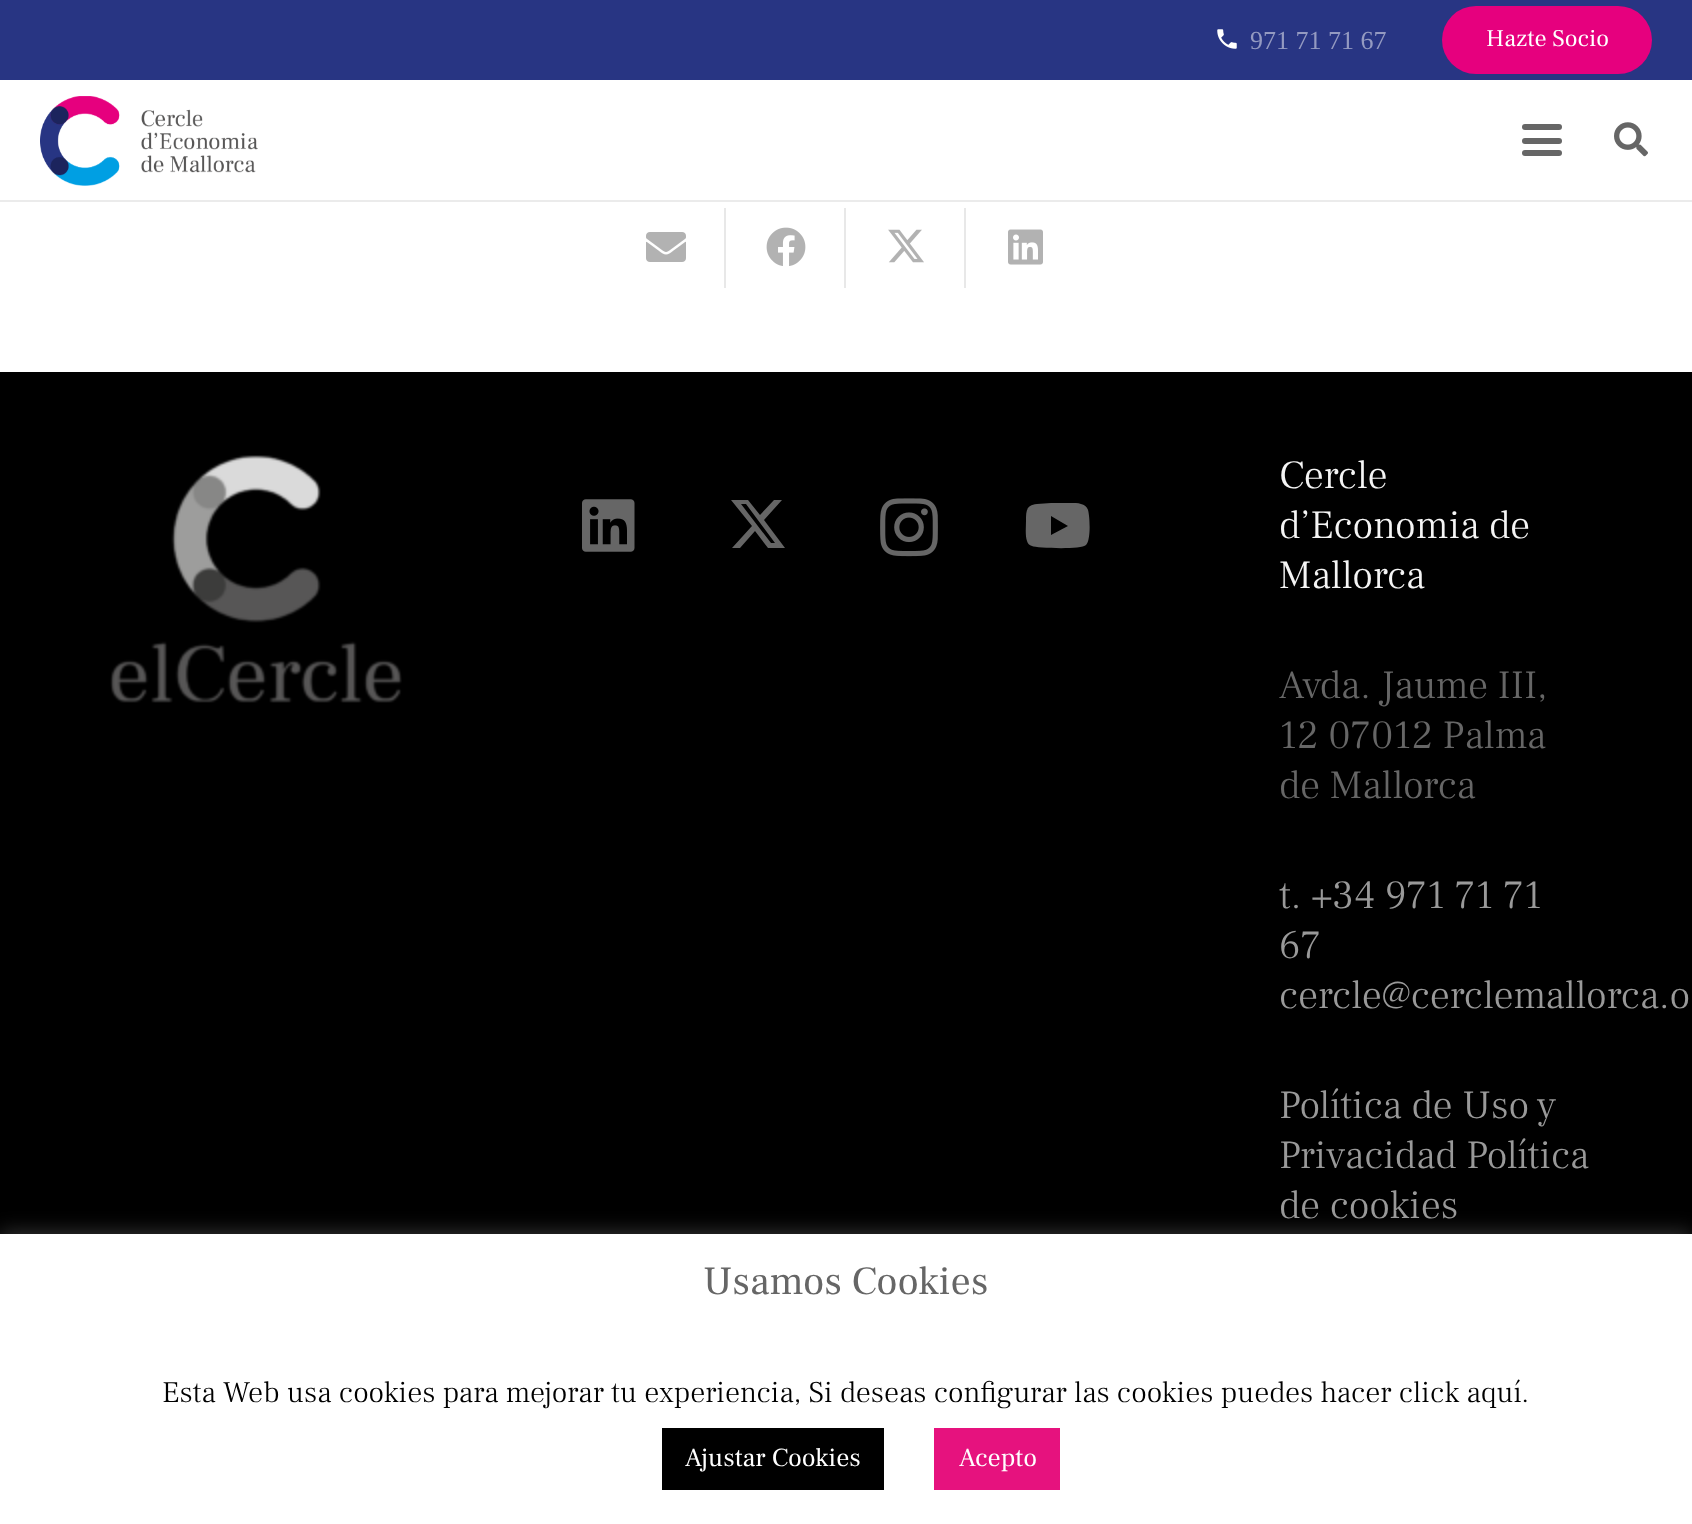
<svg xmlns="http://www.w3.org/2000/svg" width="1692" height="1524">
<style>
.a{font:26px Liberation Serif;fill:#949ac1}
.b{font:24px Frank Ruhl Libre;fill:#fff}
.c{font:300 40px Frank Ruhl Libre;fill:#f5f5f5}
.d{font:300 40px Frank Ruhl Libre;fill:#666}
.e{font:300 40px Frank Ruhl Libre;fill:#999}
.f{font:40px Frank Ruhl Libre;fill:#666}
.g{font:300 30px Frank Ruhl Libre;fill:#000}
.h{font:26px Frank Ruhl Libre;fill:#fff}
</style>
<rect width="100%" height="100%" fill="#fff"/>
<path fill="#283583" d="M0 0h1692v80H0z"/>
<image href="1.png" x="1217" y="29" width="20" height="20"/>
<rect fill="#e6007e" x="1442" y="6" width="210" height="68" rx="34"/>
<path fill="#ebebeb" d="M0 200h1692v2H0z"/>
<image href="2.png" x="40" y="96" width="218" height="90"/>
<rect fill="#666" x="1522" y="138" width="40" height="6" rx="3"/>
<rect fill="#666" x="1522" y="124" width="40" height="6" rx="3"/>
<rect fill="#666" x="1522" y="150" width="40" height="6" rx="3"/>
<image href="3.png" x="1614" y="122" width="34" height="35"/>
<path fill="#e8e8e8" d="M724 208h2v80H724z"/>
<image href="4.png" x="646" y="232" width="40" height="30"/>
<path fill="#e8e8e8" d="M844 208h2v80H844z"/>
<image href="5.png" x="766" y="227" width="40" height="39"/>
<path fill="#e8e8e8" d="M964 208h2v80H964z"/>
<image href="6.png" x="888" y="229" width="36" height="34"/>
<image href="7.png" x="1008" y="229" width="35" height="36"/>
<path fill="#000" d="M0 372h1692v862H0z"/>
<image href="8.png" x="110" y="455" width="292" height="248"/>
<image href="9.png" x="582" y="499" width="53" height="53"/>
<path fill="#666" d="M774 500h8l-18 20l21 28h-17l-13-17l-15 17h-8l20-22l-21-26h17l12 15zm-3 43h4l-29-39h-5z"/>
<image href="10.png" x="880" y="498" width="58" height="59"/>
<path fill="#666" d="M1088 510c2 7 3 30-2 35c-5 5-50 3-54 1c-3-1-4-2-5-5c-2-6-1-14-1-20c0-10 0-16 11-17l14-1h20c6 0 15 0 17 7zm-37 25l17-9l-17-10z"/>
<path fill="#acabab4d" filter="blur(10px)" d="M0 1232h1692v290H0z"/>
<path fill="#fff" d="M0 1234h1692v290H0z"/>
<path fill="#000" d="M662 1428h222v62H662z"/>
<path fill="#e6127e" d="M934 1428h126v62H934z"/>
<text class="a" x="1250" y="49">971 71 71 67</text>
<text class="b" x="1486" y="46">Hazte Socio</text>
<text class="c" x="1279" y="488">Cercle</text>
<text class="c" x="1279" y="538">d’Economia de</text>
<text class="c" x="1279" y="588">Mallorca</text>
<text class="d" x="1279" y="698">Avda. Jaume III,</text>
<text class="d" x="1279" y="748">12 07012 Palma</text>
<text class="d" x="1279" y="798">de Mallorca</text>
<text class="e" x="1279" y="908">t. +34 971 71 71</text>
<text class="e" x="1279" y="958">67</text>
<text class="e" x="1279" y="1008">cercle@cerclemallorca.o</text>
<text class="e" x="1279" y="1118">Política de Uso y</text>
<text class="e" x="1279" y="1168">Privacidad Política</text>
<text class="e" x="1279" y="1218">de cookies</text>
<text class="f" x="703" y="1294">Usamos Cookies</text>
<text class="g" x="162" y="1402">Esta Web usa cookies para mejorar tu experiencia, Si deseas configurar las cookies puedes hacer click aquí.</text>
<text class="h" x="685" y="1466">Ajustar Cookies</text>
<text class="h" x="959" y="1466">Acepto</text>
</svg>
